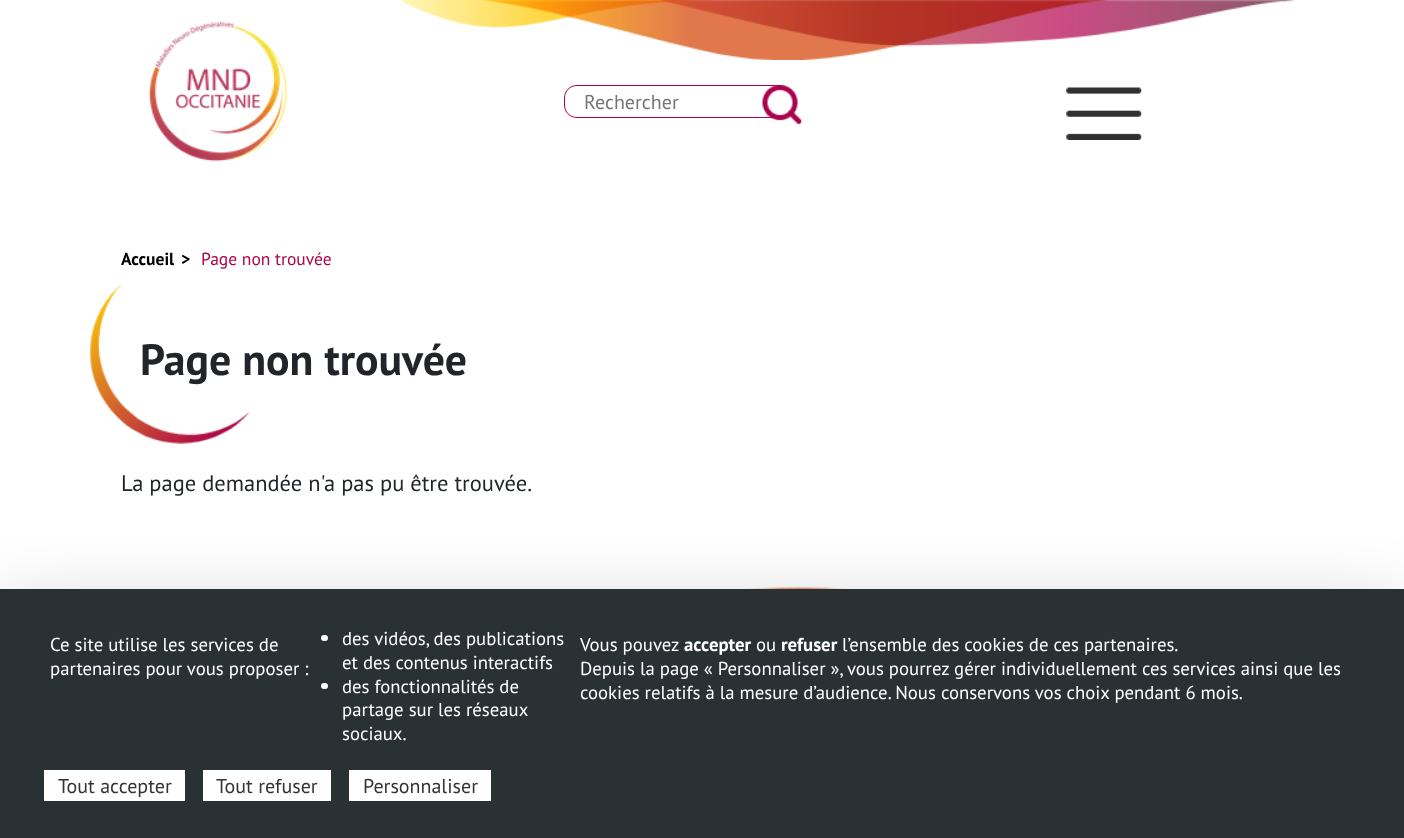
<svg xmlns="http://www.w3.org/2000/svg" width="1404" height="838">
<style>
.a{font:20px PT Sans;fill:#757575}
.b{font:bold 17.5px PT Sans;fill:#000}
.c{font:17.5px PT Sans;fill:#aa024c}
.d{font:bold 43.75px PT Sans;fill:#212529}
.e{font:22.5px PT Sans;fill:#212529}
.f{font:18.75px PT Sans;fill:#fff}
.g{font:bold 18.75px PT Sans;fill:#fff}
.h{font:20px PT Sans;fill:#333}
</style>
<rect width="100%" height="100%" fill="#fff"/>
<image href="1.png" x="148" y="21" width="140" height="141"/>
<image href="2.png" x="402" y="0" width="893" height="60"/>
<path fill="none" stroke="#aa024c" d="M577 85.5h203.5v32h-203.5c-7 0-12.5-5.5-12.5-12.5v-7c0-7 5.5-12.5 12.5-12.5z"/>
<image href="3.png" x="762" y="85" width="40" height="39"/>
<image href="4.png" x="1066" y="87" width="76" height="53"/>
<image href="6.png" x="746" y="587" width="101" height="2"/>
<path fill="#00000040" filter="blur(37.5px)" d="M0 614h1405v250H0z"/>
<path fill="#2a3135" d="M0 589h1404v249H0z"/>
<rect fill="#fff" x="321" y="635" width="7" height="6" rx="3"/>
<rect fill="#fff" x="321" y="683" width="7" height="6" rx="3"/>
<path fill="#fff" d="M44 770h141v31H44z"/>
<path fill="#fff" d="M203 770h128v31H203z"/>
<path fill="#fff" d="M349 770h142v31H349z"/>
<text class="a" x="584" y="109">Rechercher</text>
<text class="b" x="121" y="265">Accueil</text>
<text class="b" x="181" y="265">&gt;</text>
<text class="c" x="201" y="265">Page non trouvée</text>
<text class="d" x="140" y="375">Page non trouvée</text>
<image href="5.png" x="90" y="283" width="159" height="161"/>
<text class="e" x="121" y="491">La page demandée n'a pas pu être trouvée.</text>
<text class="f" x="50" y="651">Ce site utilise les services de</text>
<text class="f" x="50" y="675">partenaires pour vous proposer :</text>
<text class="f" x="342" y="645">des vidéos, des publications</text>
<text class="f" x="342" y="669">et des contenus interactifs</text>
<text class="f" x="342" y="693">des fonctionnalités de</text>
<text class="f" x="342" y="716">partage sur les réseaux</text>
<text class="f" x="342" y="740">sociaux.</text>
<text class="f" x="580" y="651">Vous pouvez</text>
<text class="g" x="684" y="651">accepter</text>
<text class="f" x="756" y="651">ou</text>
<text class="g" x="781" y="651">refuser</text>
<text class="f" x="842" y="651">l’ensemble des cookies de ces partenaires.</text>
<text class="f" x="580" y="675">Depuis la page « Personnaliser », vous pourrez gérer individuellement ces services ainsi que les</text>
<text class="f" x="580" y="699">cookies relatifs à la mesure d’audience. Nous conservons vos choix pendant 6 mois.</text>
<text class="h" x="58" y="793">Tout accepter</text>
<text class="h" x="216" y="793">Tout refuser</text>
<text class="h" x="363" y="793">Personnaliser</text>
</svg>
